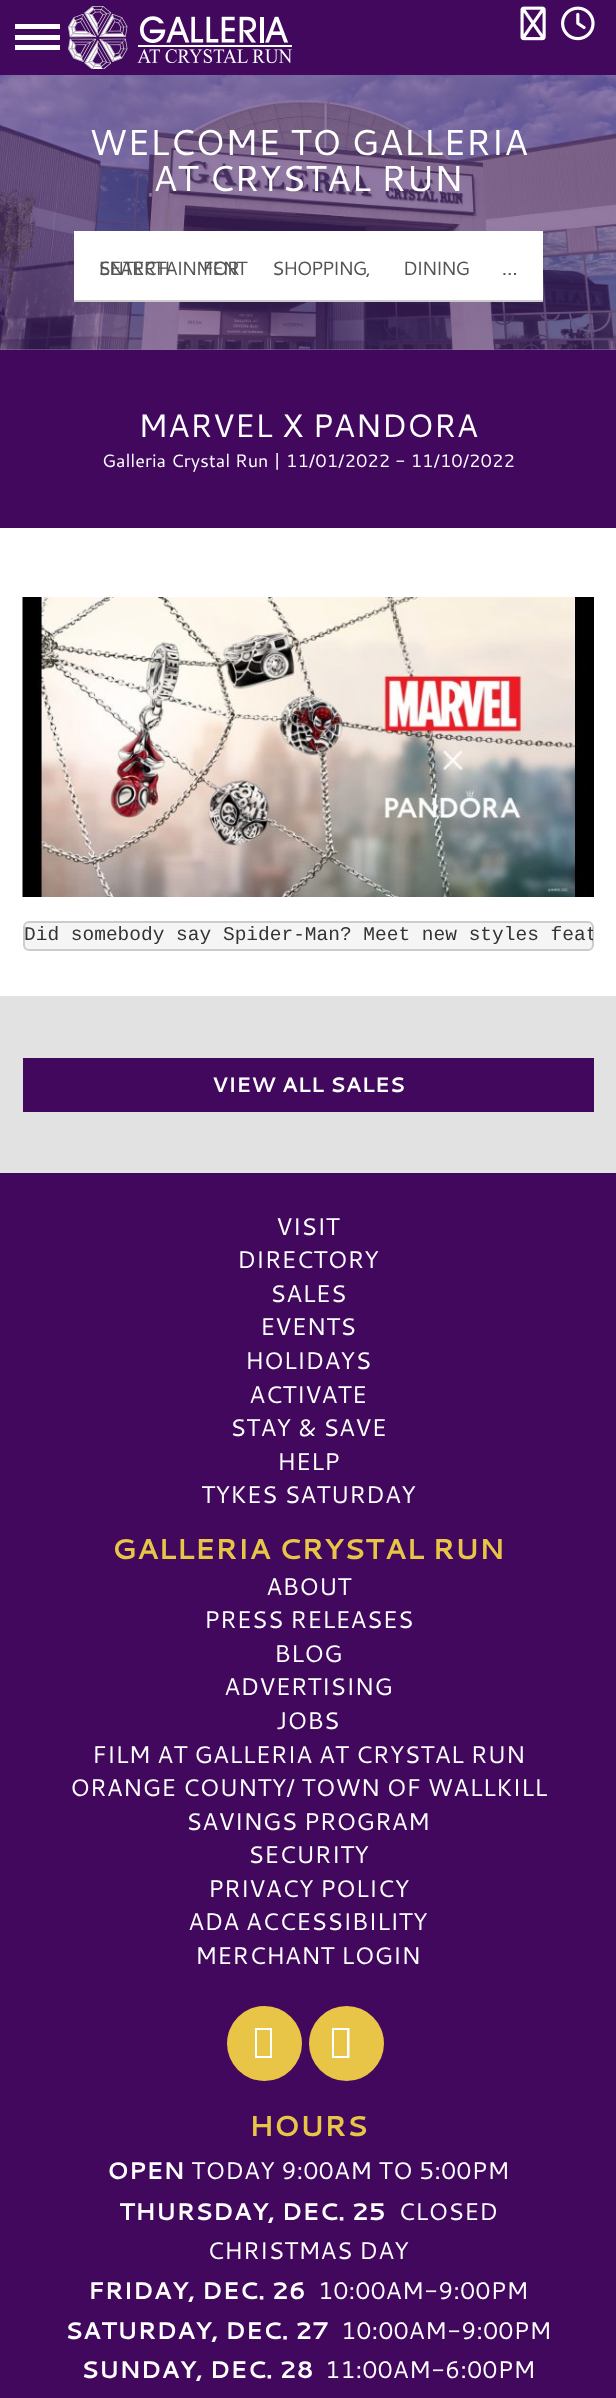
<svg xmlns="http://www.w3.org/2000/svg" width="616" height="2398">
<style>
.a{font:36px Cantarell;fill:#fff}
.b{font:19.2px Cantarell;letter-spacing:-1.5px;fill:#555}
.c{font:32.4px Cantarell;fill:#fff}
.d{font:18px Cantarell;fill:#fff}
.e{font:19.5px Liberation Mono;fill:#333}
.f{font:bold 21px Cantarell;fill:#fff}
.g{font:24px Cantarell;fill:#fff}
.h{font:bold 28.75px Cantarell;fill:#e8c547}
.i{font:bold 24px Cantarell;fill:#fff}
</style>
<defs>
<clipPath id="clip1"><rect x="24" y="923" width="569" height="27" rx="5"/></clipPath>
</defs>
<rect width="100%" height="100%" fill="#e2e2e2"/>
<path fill="#8a72a2" d="M0 349h616v1H0z"/>
<image href="1.png" x="0" y="75" width="616" height="275"/>
<path fill="#41085e" d="M0 0h616v75H0z"/>
<path fill="#fff" d="M15 35h45v5H15z"/>
<path fill="#fff" d="M15 24h45v5H15z"/>
<path fill="#fff" d="M15 45h45v5H15z"/>
<image href="2.png" x="68" y="6" width="224" height="63"/>
<image href="3.png" x="520" y="6" width="26" height="35"/>
<image href="4.png" x="561" y="6" width="34" height="35"/>
<path fill="#fff" d="M74 231h469v69H74z"/>
<path fill="#ccc" d="M74 300h469v2H74z"/>
<path fill="#41085e" d="M0 350h616v178H0z"/>
<path fill="#fff" d="M0 528h616v468H0z"/>
<image href="5.png" x="22" y="597" width="572" height="300"/>
<rect fill="#f5f5f5" stroke="#ccc" stroke-width="2" x="24" y="922" width="569" height="28" rx="5"/>
<path fill="#41085e" d="M23 1058h571v54H23z"/>
<path fill="#41085e" d="M0 1173h616v1225H0z"/>
<circle fill="#e8c547" cx="264.5" cy="2043.5" r="37.5"/>
<path fill="#fff" d="M255 2058v-30h17v30zm2-2h13v-26h-13z"/>
<circle fill="#e8c547" cx="346.5" cy="2043.5" r="37.5"/>
<path fill="#fff" d="M332 2058v-30h17.5v30zm2-2h13v-26h-13z"/>
<text class="a" x="89" y="155">WELCOME TO GALLERIA</text>
<text class="a" x="153" y="191">AT CRYSTAL RUN</text>
<text class="b" x="98" y="275" word-spacing="29.5">SEARCH FOR SHOPPING, DINING …</text>
<text class="b" x="98" y="275">ENTERTAINMENT</text>
<text class="c" x="138" y="437">MARVEL X PANDORA</text>
<text class="d" x="102" y="467">Galleria Crystal Run | 11/01/2022 - 11/10/2022</text>
<g clip-path="url(#clip1)">
<text class="e" x="24" y="940">Did somebody say Spider-Man? Meet new styles feat</text>
</g>
<text class="f" x="212" y="1092">VIEW ALL SALES</text>
<text class="g" x="276" y="1235">VISIT</text>
<text class="g" x="237" y="1268">DIRECTORY</text>
<text class="g" x="270" y="1302">SALES</text>
<text class="g" x="260" y="1335">EVENTS</text>
<text class="g" x="245" y="1369">HOLIDAYS</text>
<text class="g" x="249" y="1403">ACTIVATE</text>
<text class="g" x="230" y="1436">STAY &amp; SAVE</text>
<text class="g" x="277" y="1470">HELP</text>
<text class="g" x="201" y="1503">TYKES SATURDAY</text>
<text class="h" x="112" y="1559">GALLERIA CRYSTAL RUN</text>
<text class="g" x="266" y="1595">ABOUT</text>
<text class="g" x="204" y="1628">PRESS RELEASES</text>
<text class="g" x="274" y="1662">BLOG</text>
<text class="g" x="224" y="1695">ADVERTISING</text>
<text class="g" x="276" y="1729">JOBS</text>
<text class="g" x="92" y="1763">FILM AT GALLERIA AT CRYSTAL RUN</text>
<text class="g" x="70" y="1796">ORANGE COUNTY/ TOWN OF WALLKILL</text>
<text class="g" x="186" y="1830">SAVINGS PROGRAM</text>
<text class="g" x="248" y="1863">SECURITY</text>
<text class="g" x="208" y="1897">PRIVACY POLICY</text>
<text class="g" x="188" y="1930">ADA ACCESSIBILITY</text>
<text class="g" x="195" y="1964">MERCHANT LOGIN</text>
<text class="h" x="249" y="2136">HOURS</text>
<text class="i" x="107" y="2179">OPEN</text>
<text class="g" x="191" y="2179">TODAY 9:00AM TO 5:00PM</text>
<text class="i" x="119" y="2220">THURSDAY, DEC. 25</text>
<text class="g" x="398" y="2220">CLOSED</text>
<text class="g" x="207" y="2259">CHRISTMAS DAY</text>
<text class="i" x="88" y="2299">FRIDAY, DEC. 26</text>
<text class="g" x="318" y="2299">10:00AM-9:00PM</text>
<text class="i" x="65" y="2339">SATURDAY, DEC. 27</text>
<text class="g" x="341" y="2339">10:00AM-9:00PM</text>
<text class="i" x="81" y="2378">SUNDAY, DEC. 28</text>
<text class="g" x="325" y="2378">11:00AM-6:00PM</text>
</svg>
